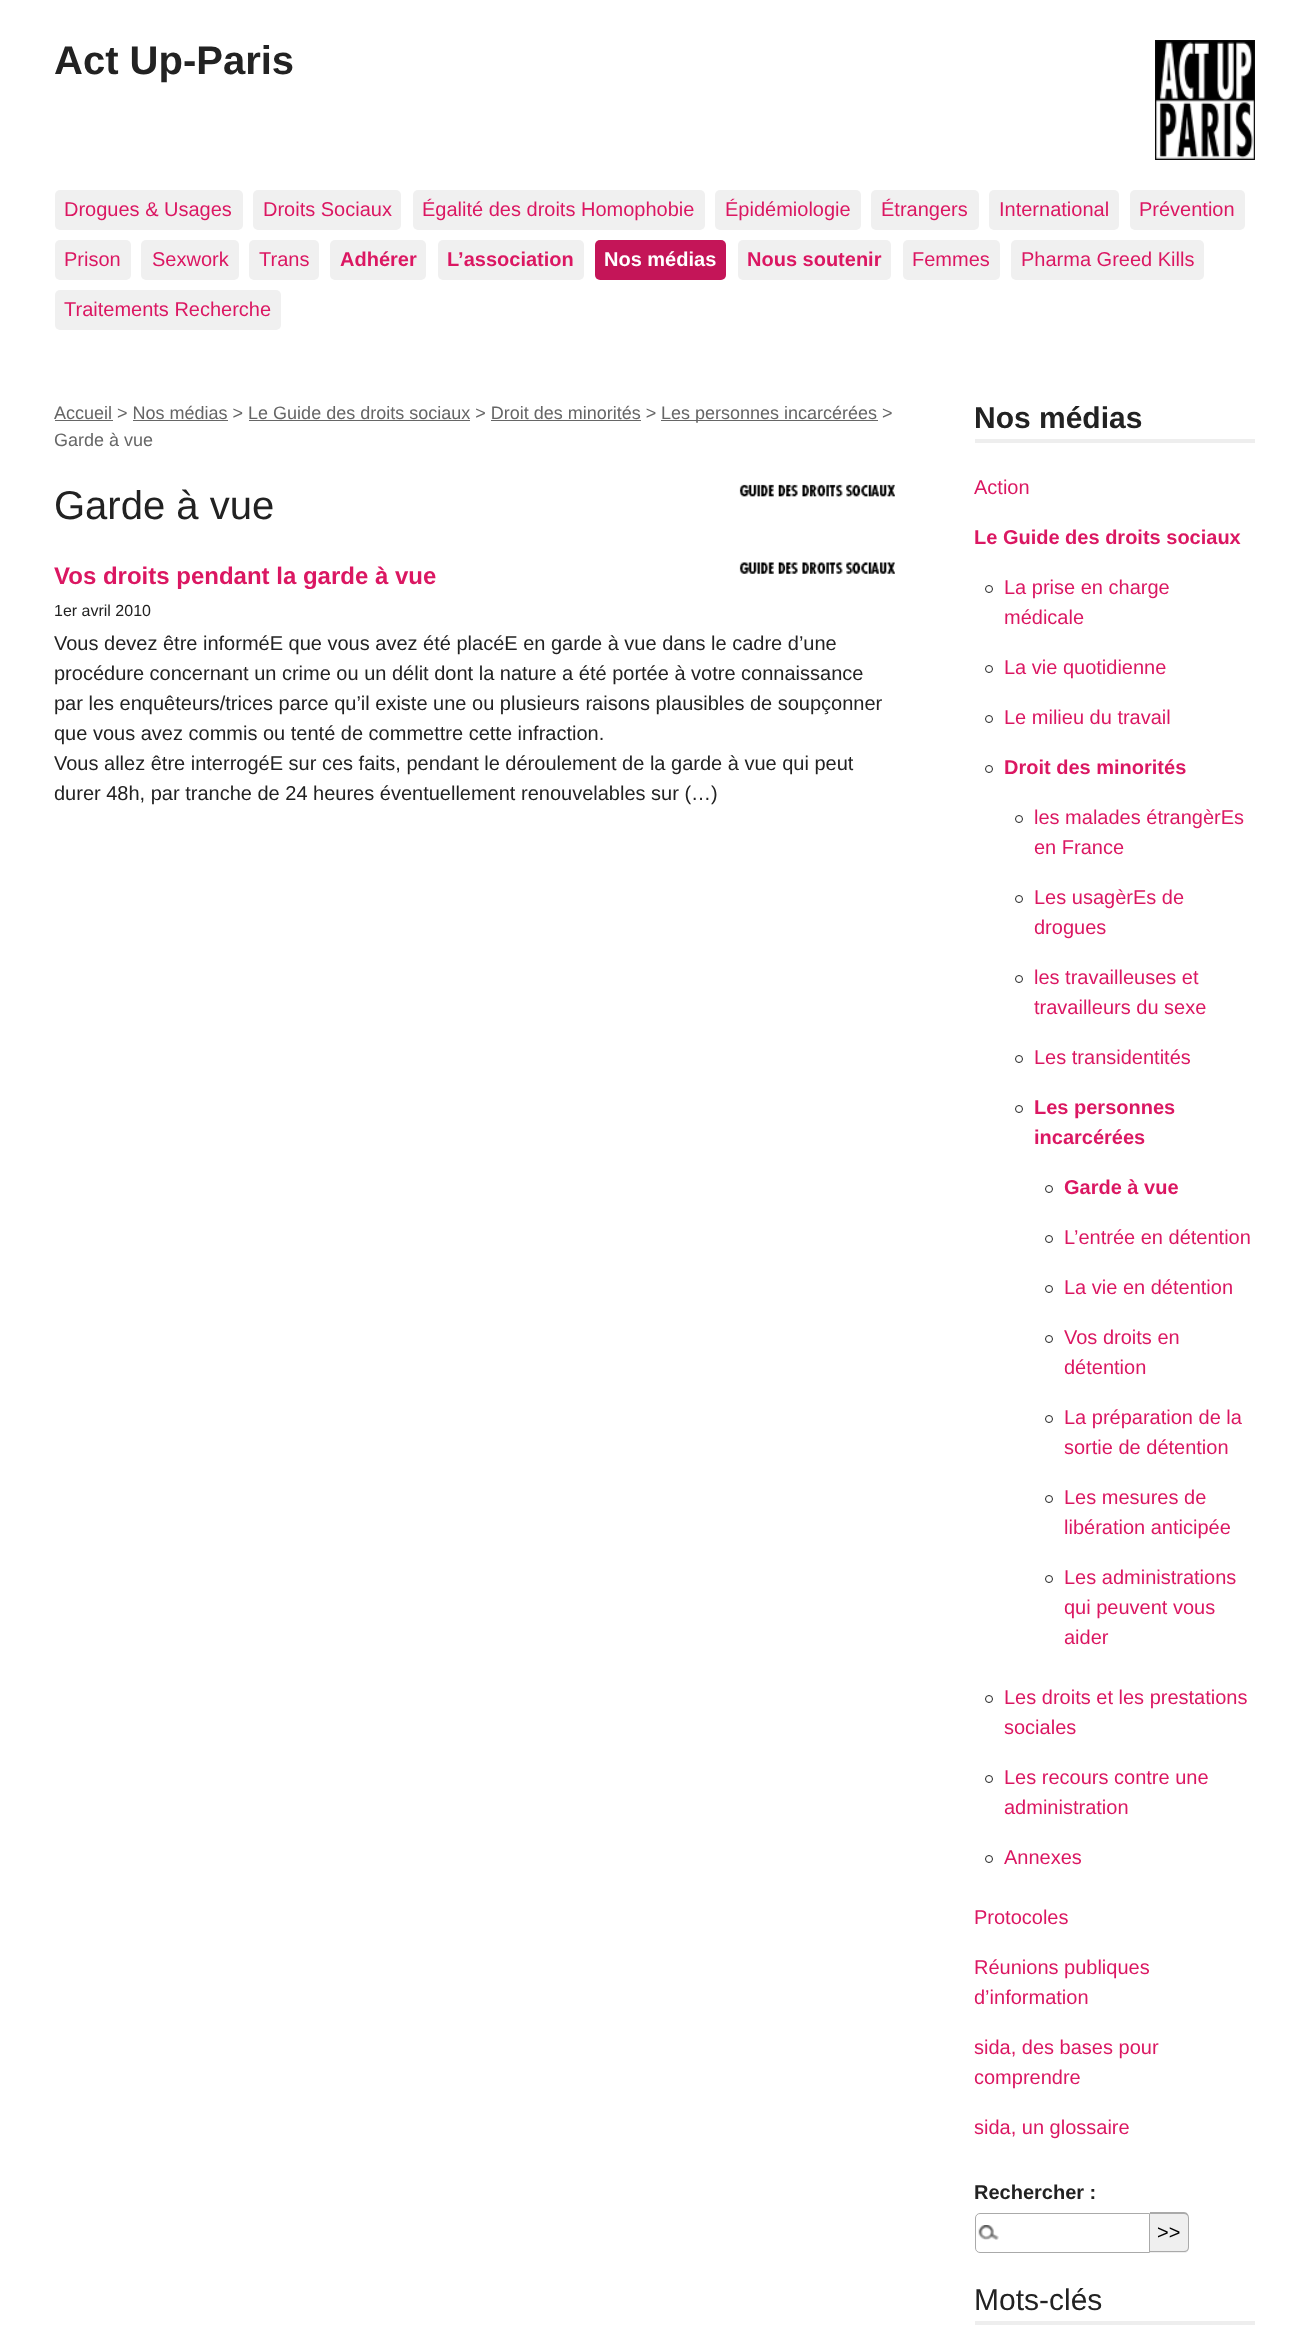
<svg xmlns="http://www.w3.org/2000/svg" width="1308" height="2328">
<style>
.a{font:bold 40px Liberation Sans;fill:#222}
.b{font:20px Liberation Sans;fill:#db1762}
.c{font:bold 20px Liberation Sans;fill:#db1762}
.d{font:bold 20px Liberation Sans;fill:#fff}
.e{font:18px Liberation Sans;fill:#666}
.f{font:40px Liberation Sans;fill:#222}
.g{font:bold 24px Liberation Sans;fill:#db1762}
.h{font:16px Liberation Sans;fill:#222}
.i{font:20px Liberation Sans;fill:#222}
.j{font:bold 30px Liberation Sans;fill:#222}
.k{font:bold 20px Liberation Sans;fill:#222}
.l{font:20px Liberation Sans;fill:#000}
.m{font:30px Liberation Sans;fill:#222}
</style>
<rect width="100%" height="100%" fill="#fff"/>
<image href="1.png" x="1155" y="40" width="100" height="120"/>
<rect fill="#f0f0f0" x="55" y="190" width="188" height="40" rx="5"/>
<rect fill="#f0f0f0" x="253" y="190" width="148" height="40" rx="5"/>
<rect fill="#f0f0f0" x="413" y="190" width="292" height="40" rx="5"/>
<rect fill="#f0f0f0" x="715" y="190" width="146" height="40" rx="5"/>
<rect fill="#f0f0f0" x="871" y="190" width="108" height="40" rx="5"/>
<rect fill="#f0f0f0" x="989" y="190" width="130" height="40" rx="5"/>
<rect fill="#f0f0f0" x="1130" y="190" width="115" height="40" rx="5"/>
<rect fill="#f0f0f0" x="55" y="240" width="76" height="40" rx="5"/>
<rect fill="#f0f0f0" x="141" y="240" width="98" height="40" rx="5"/>
<rect fill="#f0f0f0" x="249" y="240" width="70" height="40" rx="5"/>
<rect fill="#f0f0f0" x="330" y="240" width="96" height="40" rx="5"/>
<rect fill="#f0f0f0" x="438" y="240" width="146" height="40" rx="5"/>
<rect fill="#c41558" x="595" y="240" width="131" height="40" rx="5"/>
<rect fill="#f0f0f0" x="738" y="240" width="153" height="40" rx="5"/>
<rect fill="#f0f0f0" x="903" y="240" width="97" height="40" rx="5"/>
<rect fill="#f0f0f0" x="1011" y="240" width="193" height="40" rx="5"/>
<rect fill="#f0f0f0" x="55" y="290" width="226" height="40" rx="5"/>
<path fill="#666" d="M55 420h58v1H55z"/>
<path fill="#666" d="M661 420h217v1H661z"/>
<path fill="#666" d="M133 420h95v1H133z"/>
<path fill="#666" d="M249 420h221v1H249z"/>
<path fill="#666" d="M491 420h150v1H491z"/>
<image href="2.png" x="739" y="484" width="156" height="13"/>
<image href="3.png" x="739" y="562" width="156" height="12"/>
<path fill="#eee" d="M975 439h280v4H975z"/>
<circle fill="none" stroke="#222" cx="989" cy="589" r="3.5"/>
<circle fill="none" stroke="#222" cx="989" cy="669" r="3.5"/>
<circle fill="none" stroke="#222" cx="989" cy="719" r="3.5"/>
<circle fill="none" stroke="#222" cx="989" cy="769" r="3.5"/>
<circle fill="none" stroke="#222" cx="1019" cy="819" r="3.5"/>
<circle fill="none" stroke="#222" cx="1019" cy="899" r="3.5"/>
<circle fill="none" stroke="#222" cx="1019" cy="979" r="3.5"/>
<circle fill="none" stroke="#222" cx="1019" cy="1059" r="3.5"/>
<circle fill="none" stroke="#222" cx="1019" cy="1109" r="3.5"/>
<circle fill="none" stroke="#222" cx="1049" cy="1189" r="3.5"/>
<circle fill="none" stroke="#222" cx="1049" cy="1239" r="3.5"/>
<circle fill="none" stroke="#222" cx="1049" cy="1289" r="3.5"/>
<circle fill="none" stroke="#222" cx="1049" cy="1339" r="3.5"/>
<circle fill="none" stroke="#222" cx="1049" cy="1419" r="3.5"/>
<circle fill="none" stroke="#222" cx="1049" cy="1499" r="3.5"/>
<circle fill="none" stroke="#222" cx="1049" cy="1579" r="3.5"/>
<circle fill="none" stroke="#222" cx="989" cy="1699" r="3.5"/>
<circle fill="none" stroke="#222" cx="989" cy="1779" r="3.5"/>
<circle fill="none" stroke="#222" cx="989" cy="1859" r="3.5"/>
<image href="4.png" x="978" y="2225" width="21" height="15"/>
<path fill="none" stroke="#aaa" d="M980 2213.5h169.5v39h-169.5c-2.5 0-4.5-2-4.5-4.5v-30c0-2.5 2-4.5 4.5-4.5z"/>
<path fill="#efefef" d="M1150 2213h34c3 0 5 2 5 5v30c0 3-2 5-5 5h-34z"/>
<path fill="#aaa" fill-rule="evenodd" d="M1150 2212h34c3 0 5 3 5 6v29c0 3-2 5-5 5h-34zm0 2h34c2 0 4 1 4 4v29c0 3-2 4-4 4h-34z"/>
<path fill="#eee" d="M975 2321h280v4H975z"/>
<text class="a" x="54" y="74">Act Up-Paris</text>
<text class="b" x="64" y="216">Drogues &amp; Usages</text>
<text class="b" x="263" y="216">Droits Sociaux</text>
<text class="b" x="422" y="216">Égalité des droits Homophobie</text>
<text class="b" x="725" y="216">Épidémiologie</text>
<text class="b" x="881" y="216">Étrangers</text>
<text class="b" x="999" y="216">International</text>
<text class="b" x="1139" y="216">Prévention</text>
<text class="b" x="64" y="266">Prison</text>
<text class="b" x="152" y="266">Sexwork</text>
<text class="b" x="259" y="266">Trans</text>
<text class="c" x="340" y="266">Adhérer</text>
<text class="c" x="447" y="266">L’association</text>
<text class="d" x="604" y="266">Nos médias</text>
<text class="c" x="747" y="266">Nous soutenir</text>
<text class="b" x="912" y="266">Femmes</text>
<text class="b" x="1021" y="266">Pharma Greed Kills</text>
<text class="b" x="64" y="316">Traitements Recherche</text>
<text class="e" x="54" y="419">Accueil &gt; Nos médias &gt; Le Guide des droits sociaux &gt; Droit des minorités &gt;</text>
<text class="e" x="661" y="419">Les personnes incarcérées &gt;</text>
<text class="e" x="54" y="446">Garde à vue</text>
<text class="f" x="54" y="519">Garde à vue</text>
<text class="g" x="54" y="584">Vos droits pendant la garde à vue</text>
<text class="h" x="54" y="616">1er avril 2010</text>
<text class="i" x="54" y="650">Vous devez être informéE que vous avez été placéE en garde à vue dans le cadre d’une</text>
<text class="i" x="54" y="680">procédure concernant un crime ou un délit dont la nature a été portée à votre connaissance</text>
<text class="i" x="54" y="710">par les enquêteurs/trices parce qu’il existe une ou plusieurs raisons plausibles de soupçonner</text>
<text class="i" x="54" y="740">que vous avez commis ou tenté de commettre cette infraction.</text>
<text class="i" x="54" y="770">Vous allez être interrogéE sur ces faits, pendant le déroulement de la garde à vue qui peut</text>
<text class="i" x="54" y="800">durer 48h, par tranche de 24 heures éventuellement renouvelables sur (…)</text>
<text class="j" x="974" y="428">Nos médias</text>
<text class="b" x="974" y="494">Action</text>
<text class="c" x="974" y="544">Le Guide des droits sociaux</text>
<text class="b" x="1004" y="594">La prise en charge</text>
<text class="b" x="1004" y="624">médicale</text>
<text class="b" x="1004" y="674">La vie quotidienne</text>
<text class="b" x="1004" y="724">Le milieu du travail</text>
<text class="c" x="1004" y="774">Droit des minorités</text>
<text class="b" x="1034" y="824">les malades étrangèrEs</text>
<text class="b" x="1034" y="854">en France</text>
<text class="b" x="1034" y="904">Les usagèrEs de</text>
<text class="b" x="1034" y="934">drogues</text>
<text class="b" x="1034" y="984">les travailleuses et</text>
<text class="b" x="1034" y="1014">travailleurs du sexe</text>
<text class="b" x="1034" y="1064">Les transidentités</text>
<text class="c" x="1034" y="1114">Les personnes</text>
<text class="c" x="1034" y="1144">incarcérées</text>
<text class="c" x="1064" y="1194">Garde à vue</text>
<text class="b" x="1064" y="1244">L’entrée en détention</text>
<text class="b" x="1064" y="1294">La vie en détention</text>
<text class="b" x="1064" y="1344">Vos droits en</text>
<text class="b" x="1064" y="1374">détention</text>
<text class="b" x="1064" y="1424">La préparation de la</text>
<text class="b" x="1064" y="1454">sortie de détention</text>
<text class="b" x="1064" y="1504">Les mesures de</text>
<text class="b" x="1064" y="1534">libération anticipée</text>
<text class="b" x="1064" y="1584">Les administrations</text>
<text class="b" x="1064" y="1614">qui peuvent vous</text>
<text class="b" x="1064" y="1644">aider</text>
<text class="b" x="1004" y="1704">Les droits et les prestations</text>
<text class="b" x="1004" y="1734">sociales</text>
<text class="b" x="1004" y="1784">Les recours contre une</text>
<text class="b" x="1004" y="1814">administration</text>
<text class="b" x="1004" y="1864">Annexes</text>
<text class="b" x="974" y="1924">Protocoles</text>
<text class="b" x="974" y="1974">Réunions publiques</text>
<text class="b" x="974" y="2004">d’information</text>
<text class="b" x="974" y="2054">sida, des bases pour</text>
<text class="b" x="974" y="2084">comprendre</text>
<text class="b" x="974" y="2134">sida, un glossaire</text>
<text class="k" x="974" y="2199">Rechercher :</text>
<text class="l" x="1157" y="2239">&gt;&gt;</text>
<text class="m" x="974" y="2310">Mots-clés</text>
</svg>
